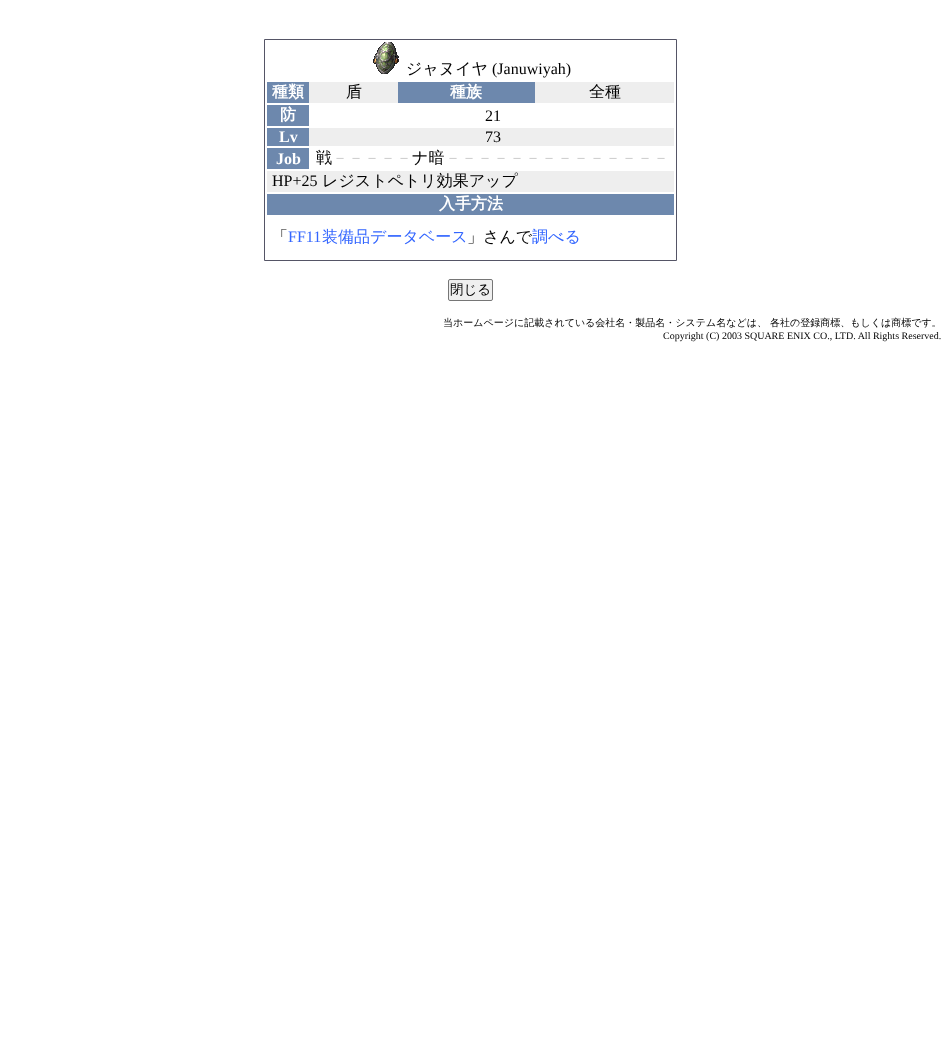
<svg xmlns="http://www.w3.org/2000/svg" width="941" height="1056">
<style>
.a{font:500 16px WenQuanYi Zen Hei;fill:#000}
.b{font:16px Liberation Serif;fill:#000}
.c{font:bold 16px WenQuanYi Zen Hei;fill:#fff}
.d{font:bold 16px Liberation Serif;fill:#fff}
.e{font:500 16px WenQuanYi Zen Hei;fill:#ccc}
.f{font:16px Liberation Serif;fill:#36f}
.g{font:500 16px WenQuanYi Zen Hei;fill:#36f}
.h{font:500 13.5px WenQuanYi Zen Hei;fill:#000}
.i{font:500 10px WenQuanYi Zen Hei;fill:#000}
.j{font:10px Liberation Serif;fill:#000}
</style>
<rect width="100%" height="100%" fill="#fff"/>
<path fill="none" stroke="#556" d="M264.5 39.5h412v221H264.5z"/>
<image href="1.png" x="373" y="42" width="26" height="32"/>
<path fill="#eee" d="M309 82h365v21H309z"/>
<path fill="#6d88ad" d="M267 82h42v21H267z"/>
<path fill="#6d88ad" d="M398 82h137v21H398z"/>
<path fill="#6d88ad" d="M267 105h42v21H267z"/>
<path fill="#eee" d="M309 128h365v18H309z"/>
<path fill="#6d88ad" d="M267 128h42v18H267z"/>
<path fill="#6d88ad" d="M267 148h42v21H267z"/>
<path fill="#eee" d="M267 171h407v21H267z"/>
<path fill="#6d88ad" d="M267 194h407v21H267z"/>
<rect fill="#efefef" stroke="#767676" x="448.5" y="279.5" width="44" height="21" rx="1.5"/>
<text class="a" x="406" y="74">ジャヌイヤ</text>
<text class="b" x="492" y="74">(Januwiyah)</text>
<text class="c" x="272" y="97">種類</text>
<text class="a" x="346" y="97">盾</text>
<text class="c" x="450" y="97">種族</text>
<text class="a" x="589" y="97">全種</text>
<text class="c" x="280" y="120">防</text>
<text class="b" x="485" y="121">21</text>
<text class="d" x="279" y="142">Lv</text>
<text class="b" x="485" y="142">73</text>
<text class="d" x="276" y="164">Job</text>
<text class="a" x="316" y="163">戦</text>
<text class="e" x="332" y="163">－－－－－</text>
<text class="a" x="412" y="163">ナ暗</text>
<text class="e" x="445" y="163">－－－－－－－－－－－－－－</text>
<text class="b" x="272" y="186">HP+25</text>
<text class="a" x="322" y="186">レジストペトリ効果アップ</text>
<text class="c" x="439" y="209">入手方法</text>
<text class="a" x="272" y="242">「</text>
<text class="f" x="288" y="242">FF11</text>
<text class="g" x="322" y="242">装備品データベース</text>
<text class="a" x="467" y="242">」さんで</text>
<text class="g" x="532" y="242">調べる</text>
<text class="h" x="450" y="294">閉じる</text>
<text class="i" x="443" y="326">当ホームページに記載されている会社名・製品名・システム名などは、 各社の登録商標、もしくは商標です。</text>
<text class="j" x="663" y="339">Copyright (C) 2003 SQUARE ENIX CO., LTD. All Rights Reserved.</text>
</svg>
